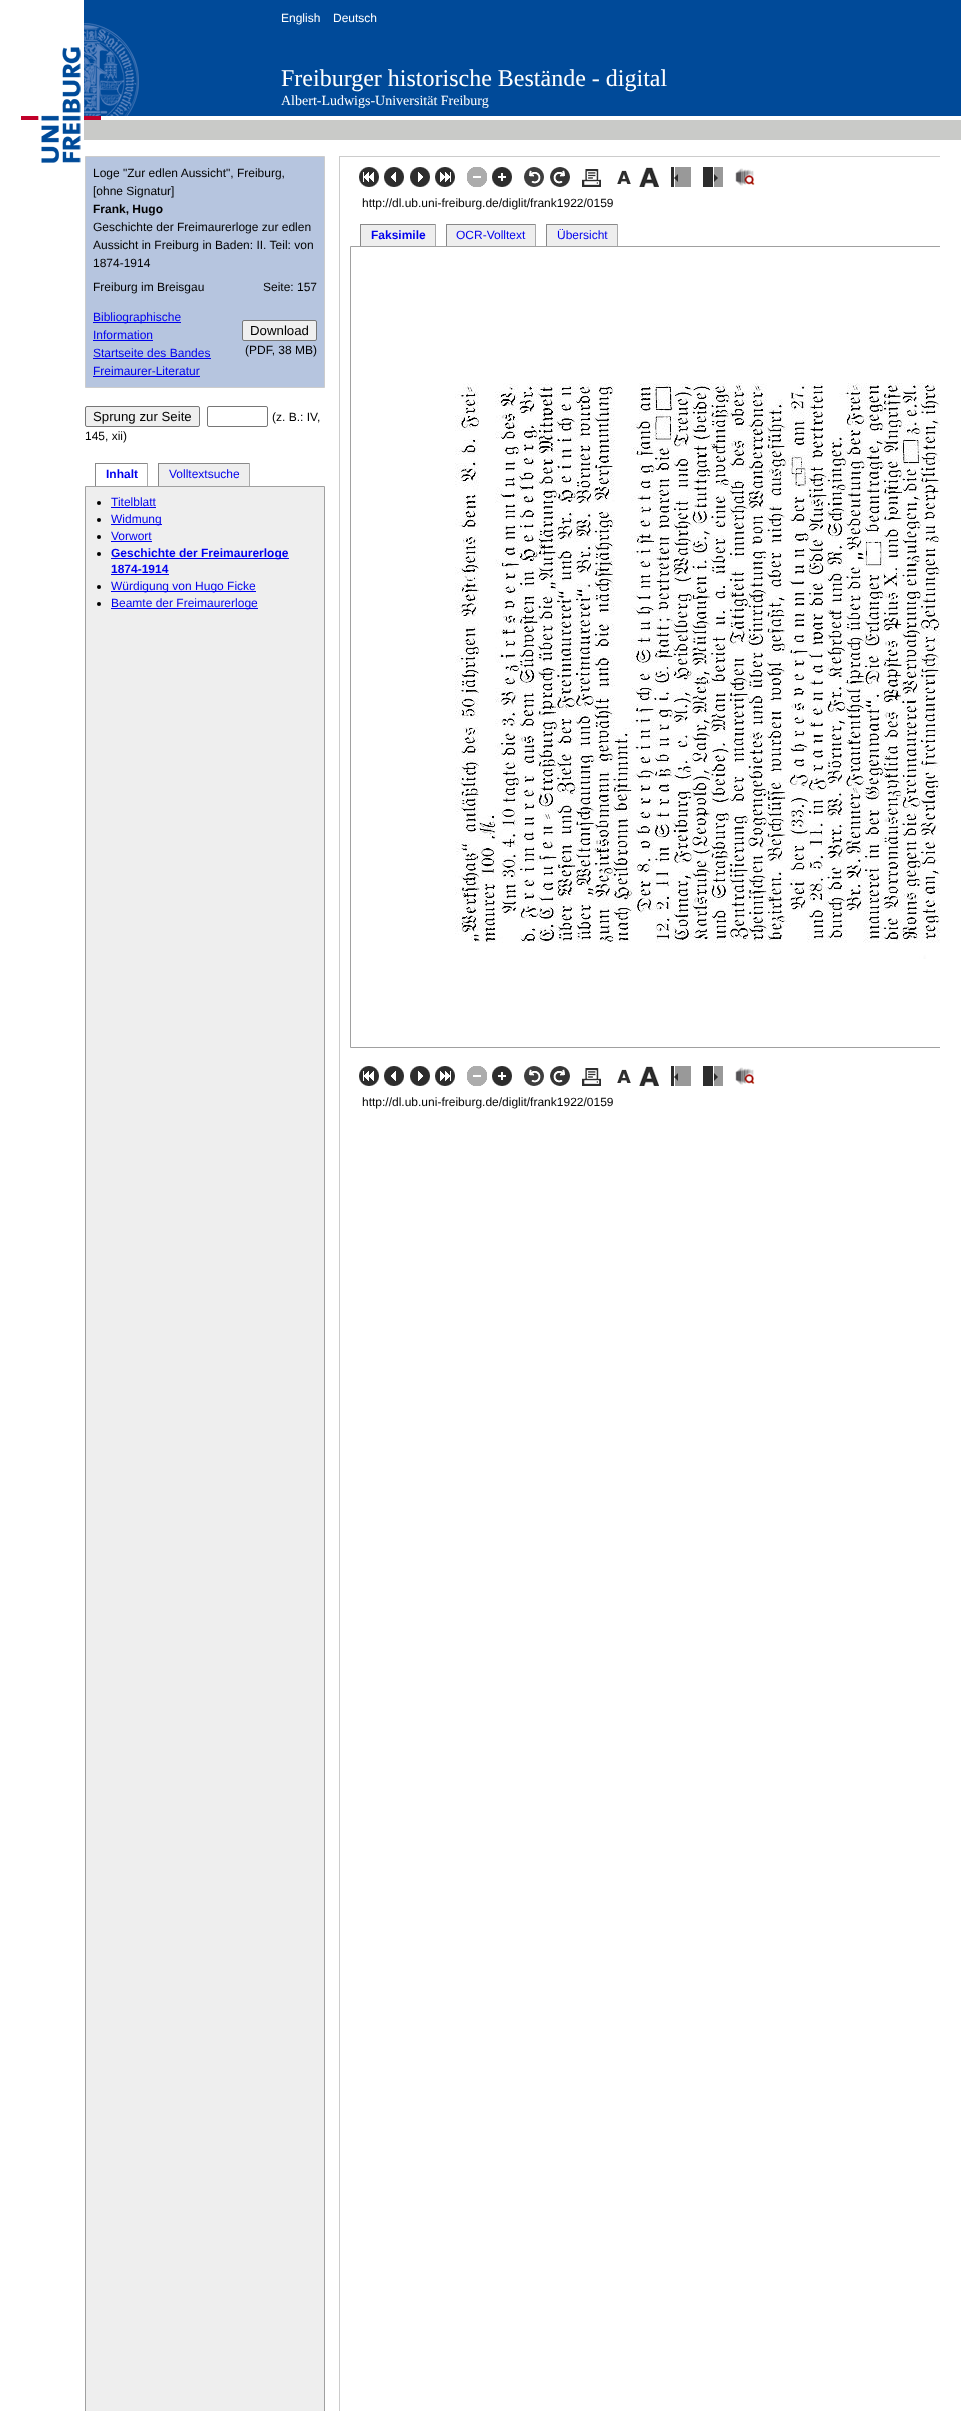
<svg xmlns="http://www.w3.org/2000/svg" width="961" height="2411">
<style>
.a{font:12px Liberation Sans;fill:#fff}
.b{font:24px Liberation Serif;fill:#fff}
.c{font:14px Liberation Serif;fill:#fff}
.d{font:12px Liberation Sans;fill:#000}
.e{font:bold 12px Liberation Sans;fill:#000}
.f{font:12px Liberation Sans;fill:#00e}
.g{font:13.25px Liberation Sans;fill:#000}
.h{font:bold 12px Liberation Sans;fill:#00e}
</style>
<defs>
<clipPath id="clip1"><path d="M85 156h855v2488H85z"/></clipPath>
</defs>
<rect width="100%" height="100%" fill="#fff"/>
<image href="1.png" x="84" y="0" width="877" height="140"/>
<image href="2.png" x="21" y="47" width="60" height="116"/>
<image href="3.png" x="84" y="23" width="55" height="97"/>
<path fill="#b6c5df" stroke="#ccc" d="M85.5 156.5h239v231H85.5z"/>
<path fill="#00e" d="M93 322h88v1H93z"/>
<path fill="#00e" d="M93 340h60v1H93z"/>
<rect fill="#efefef" stroke="#767676" x="242.5" y="320.5" width="74" height="20" rx="1.5"/>
<path fill="#00e" d="M93 358h118v1H93z"/>
<path fill="#00e" d="M93 376h107v1H93z"/>
<rect fill="#efefef" stroke="#767676" x="85.5" y="406.5" width="114" height="20" rx="1.5"/>
<rect fill="none" stroke="#767676" x="207.5" y="406.5" width="60" height="20" rx="1.5"/>
<path fill="#888" d="M95 463h53v1H95z"/>
<path fill="#aaa" d="M147 463h1v23H147z"/>
<path fill="#888" d="M95 463h1v23H95z"/>
<path fill="#eee" d="M159 464h90v22H159z"/>
<path fill="#888" d="M158 463h92v1H158z"/>
<path fill="#aaa" d="M249 463h1v23H249z"/>
<path fill="#888" d="M158 463h1v23H158z"/>
<path fill="#eee" stroke="#a0a0a0" d="M85.5 486.5h239v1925H85.5z"/>
<circle fill="#000" cx="99" cy="503" r="2"/>
<path fill="#00e" d="M111 507h45v1H111z"/>
<circle fill="#000" cx="99" cy="520" r="2"/>
<path fill="#00e" d="M111 524h51v1H111z"/>
<circle fill="#000" cx="99" cy="537" r="2"/>
<path fill="#00e" d="M111 541h41v1H111z"/>
<circle fill="#000" cx="99" cy="554" r="2"/>
<path fill="#00e" d="M111 558h178v1H111z"/>
<path fill="#00e" d="M111 574h58v1H111z"/>
<circle fill="#000" cx="99" cy="587" r="2"/>
<path fill="#00e" d="M111 591h145v1H111z"/>
<circle fill="#000" cx="99" cy="604" r="2"/>
<path fill="#00e" d="M111 608h147v1H111z"/>
<path fill="#ccc" d="M339 156h601v1H339z"/>
<path fill="#ccc" d="M339 156h1v2255H339z"/>
<image href="4.png" x="359" y="167" width="20" height="20"/>
<image href="5.png" x="384" y="167" width="20" height="20"/>
<image href="6.png" x="410" y="167" width="20" height="20"/>
<image href="7.png" x="435" y="167" width="20" height="20"/>
<image href="8.png" x="467" y="167" width="20" height="20"/>
<image href="9.png" x="492" y="167" width="20" height="20"/>
<image href="10.png" x="524" y="167" width="20" height="20"/>
<image href="11.png" x="550" y="167" width="20" height="20"/>
<image href="12.png" x="582" y="169" width="19" height="18"/>
<image href="13.png" x="617" y="170" width="14" height="14"/>
<image href="14.png" x="639" y="167" width="20" height="20"/>
<image href="15.png" x="671" y="167" width="20" height="20"/>
<image href="16.png" x="703" y="167" width="20" height="20"/>
<image href="17.png" x="735" y="168" width="20" height="18"/>
<path fill="#eee" d="M361 225h74v21H361z"/>
<path fill="#888" d="M360 224h76v1H360z"/>
<path fill="#aaa" d="M435 224h1v22H435z"/>
<path fill="#888" d="M360 224h1v22H360z"/>
<path fill="#eee" d="M447 225h88v21H447z"/>
<path fill="#888" d="M446 224h90v1H446z"/>
<path fill="#aaa" d="M535 224h1v22H535z"/>
<path fill="#888" d="M446 224h1v22H446z"/>
<path fill="#eee" d="M547 225h70v21H547z"/>
<path fill="#888" d="M546 224h72v1H546z"/>
<path fill="#aaa" d="M617 224h1v22H617z"/>
<path fill="#888" d="M546 224h1v22H546z"/>
<g clip-path="url(#clip1)">
<path fill="none" stroke="#a0a0a0" d="M350.5 246.5h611v801H350.5z"/>
</g>
<image href="18.png" x="455" y="383" width="485" height="576"/>
<image href="4.png" x="359" y="1066" width="20" height="20"/>
<image href="5.png" x="384" y="1066" width="20" height="20"/>
<image href="6.png" x="410" y="1066" width="20" height="20"/>
<image href="7.png" x="435" y="1066" width="20" height="20"/>
<image href="8.png" x="467" y="1066" width="20" height="20"/>
<image href="9.png" x="492" y="1066" width="20" height="20"/>
<image href="10.png" x="524" y="1066" width="20" height="20"/>
<image href="11.png" x="550" y="1066" width="20" height="20"/>
<image href="12.png" x="582" y="1068" width="19" height="18"/>
<image href="13.png" x="617" y="1069" width="14" height="14"/>
<image href="14.png" x="639" y="1066" width="20" height="20"/>
<image href="15.png" x="671" y="1066" width="20" height="20"/>
<image href="16.png" x="703" y="1066" width="20" height="20"/>
<image href="17.png" x="735" y="1067" width="20" height="18"/>
<text class="a" x="281" y="22">English</text>
<text class="a" x="333" y="22">Deutsch</text>
<text class="b" x="281" y="86">Freiburger historische Bestände - digital</text>
<text class="c" x="281" y="105">Albert-Ludwigs-Universität Freiburg</text>
<text class="d" x="93" y="177">Loge "Zur edlen Aussicht", Freiburg,</text>
<text class="d" x="93" y="195">[ohne Signatur]</text>
<text class="e" x="93" y="213">Frank, Hugo</text>
<text class="d" x="93" y="231">Geschichte der Freimaurerloge zur edlen</text>
<text class="d" x="93" y="249">Aussicht in Freiburg in Baden: II. Teil: von</text>
<text class="d" x="93" y="267">1874-1914</text>
<text class="d" x="93" y="291">Freiburg im Breisgau</text>
<text class="d" x="263" y="291">Seite: 157</text>
<text class="f" x="93" y="321">Bibliographische</text>
<text class="f" x="93" y="339">Information</text>
<text class="g" x="250" y="335">Download</text>
<text class="d" x="245" y="354">(PDF, 38 MB)</text>
<text class="f" x="93" y="357">Startseite des Bandes</text>
<text class="f" x="93" y="375">Freimaurer-Literatur</text>
<text class="g" x="93" y="421">Sprung zur Seite</text>
<text class="d" x="272" y="421">(z. B.: IV,</text>
<text class="d" x="85" y="440">145, xii)</text>
<text class="h" x="106" y="478">Inhalt</text>
<text class="f" x="169" y="478">Volltextsuche</text>
<text class="f" x="111" y="506">Titelblatt</text>
<text class="f" x="111" y="523">Widmung</text>
<text class="f" x="111" y="540">Vorwort</text>
<text class="h" x="111" y="557">Geschichte der Freimaurerloge</text>
<text class="h" x="111" y="573">1874-1914</text>
<text class="f" x="111" y="590">Würdigung von Hugo Ficke</text>
<text class="f" x="111" y="607">Beamte der Freimaurerloge</text>
<text class="d" x="362" y="207">http://dl.ub.uni-freiburg.de/diglit/frank1922/0159</text>
<text class="h" x="371" y="239">Faksimile</text>
<text class="f" x="456" y="239">OCR-Volltext</text>
<text class="f" x="557" y="239">Übersicht</text>
<text class="d" x="362" y="1106">http://dl.ub.uni-freiburg.de/diglit/frank1922/0159</text>
</svg>
